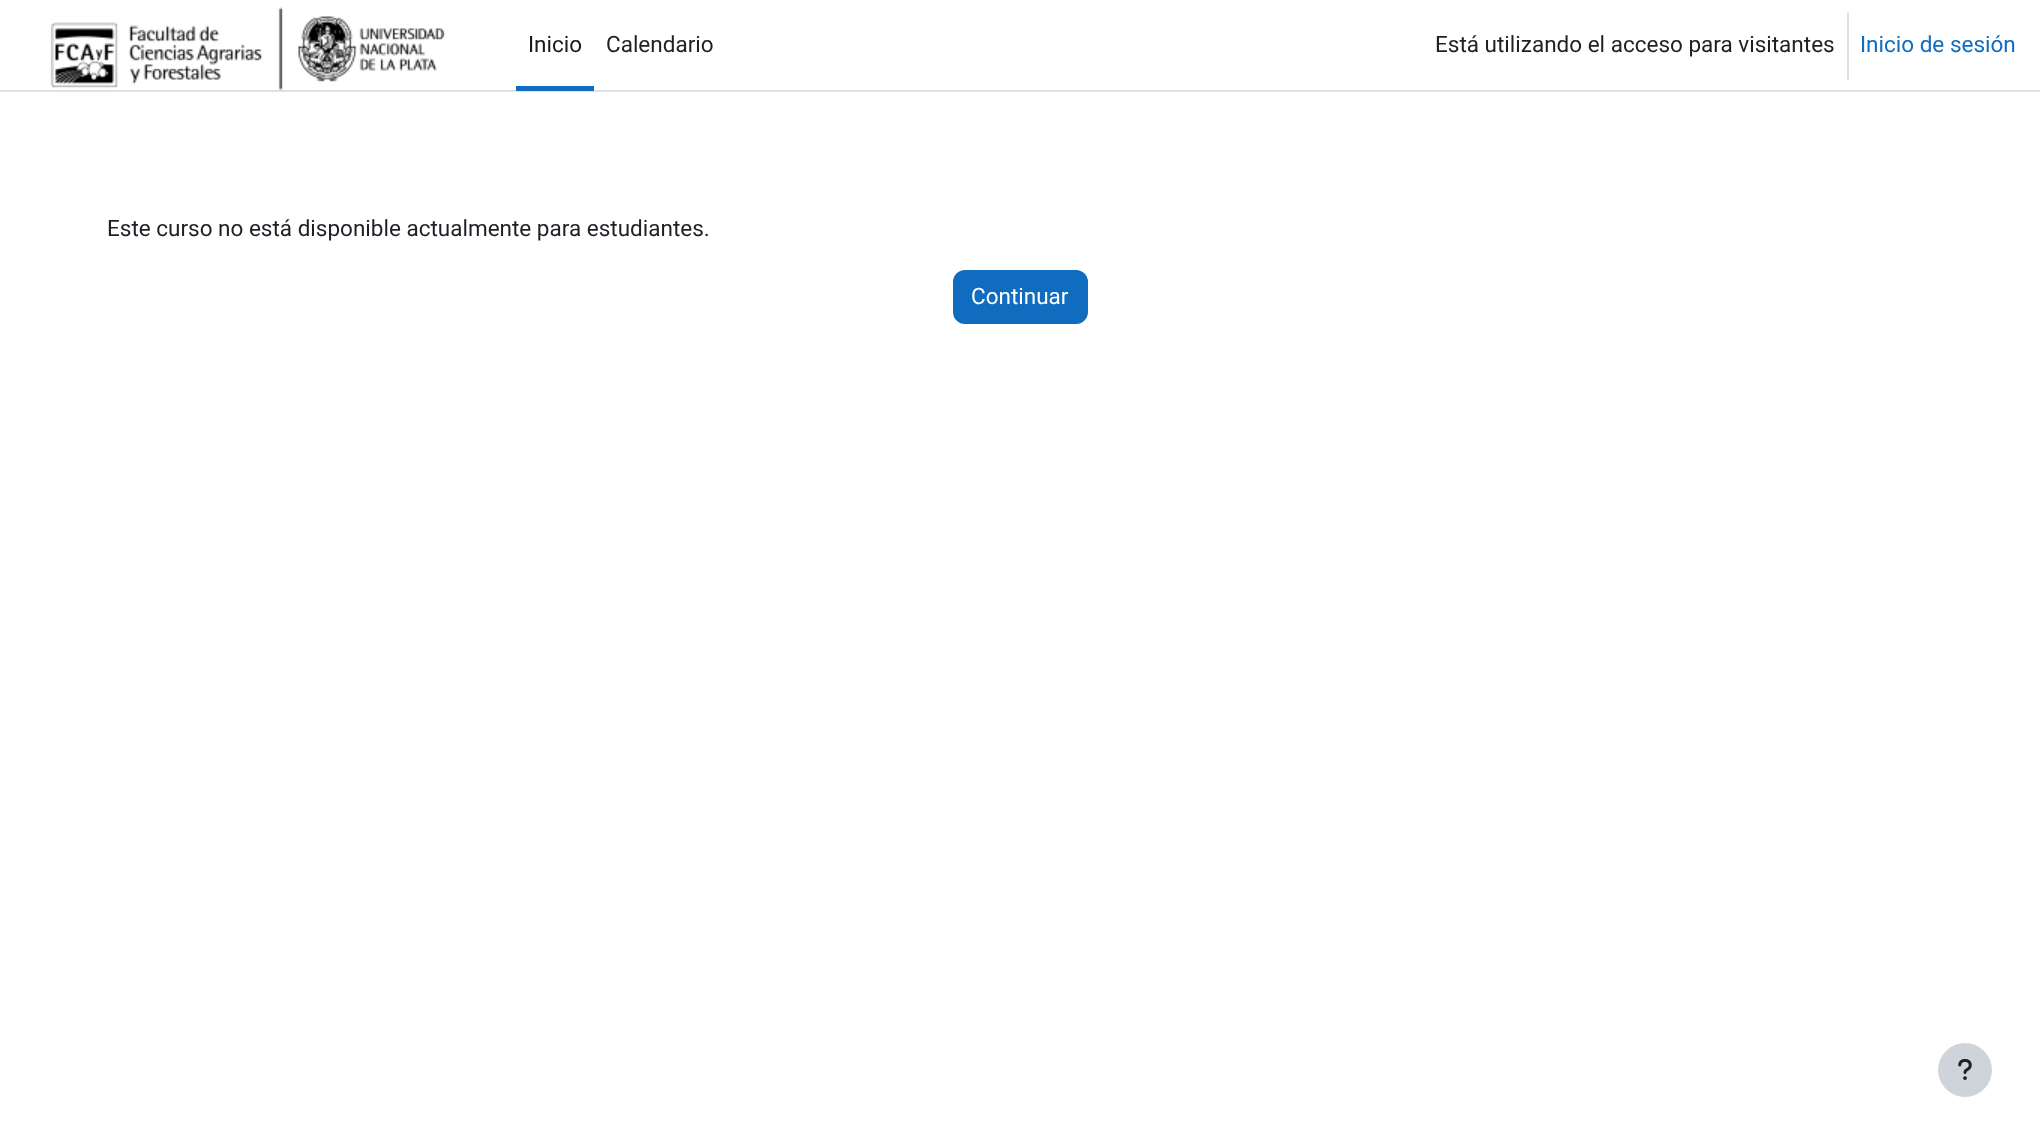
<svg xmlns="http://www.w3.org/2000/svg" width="2040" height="1144">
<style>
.a{font:22.5px Roboto;fill:#1a1a1a}
.b{font:22.5px Roboto;fill:#1d2125}
.c{font:22.5px Roboto;fill:#0f6cbf}
.d{font:22.5px Roboto;fill:#fff}
</style>
<rect width="100%" height="100%" fill="#fff"/>
<path fill="#dee2e6" d="M0 90h2040v2H0z"/>
<image href="1.png" x="50" y="7" width="395" height="84"/>
<path fill="#0f6cbf" d="M516 86h78v5H516z"/>
<path fill="#dee2e6" d="M1847 12h2v68H1847z"/>
<rect fill="#0f6cbf" stroke="#0f6cbf" stroke-width="2" x="954" y="271" width="133" height="52" rx="11"/>
<circle fill="#ced4da" cx="1965" cy="1070" r="27"/>
<image href="2.png" x="1958" y="1059" width="14" height="21"/>
<text class="a" x="528" y="52">Inicio</text>
<text class="b" x="606" y="52">Calendario</text>
<text class="b" x="1435" y="52">Está utilizando el acceso para visitantes</text>
<text class="c" x="1860" y="52">Inicio de sesión</text>
<text class="b" x="107" y="236">Este curso no está disponible actualmente para estudiantes.</text>
<text class="d" x="971" y="304">Continuar</text>
</svg>
